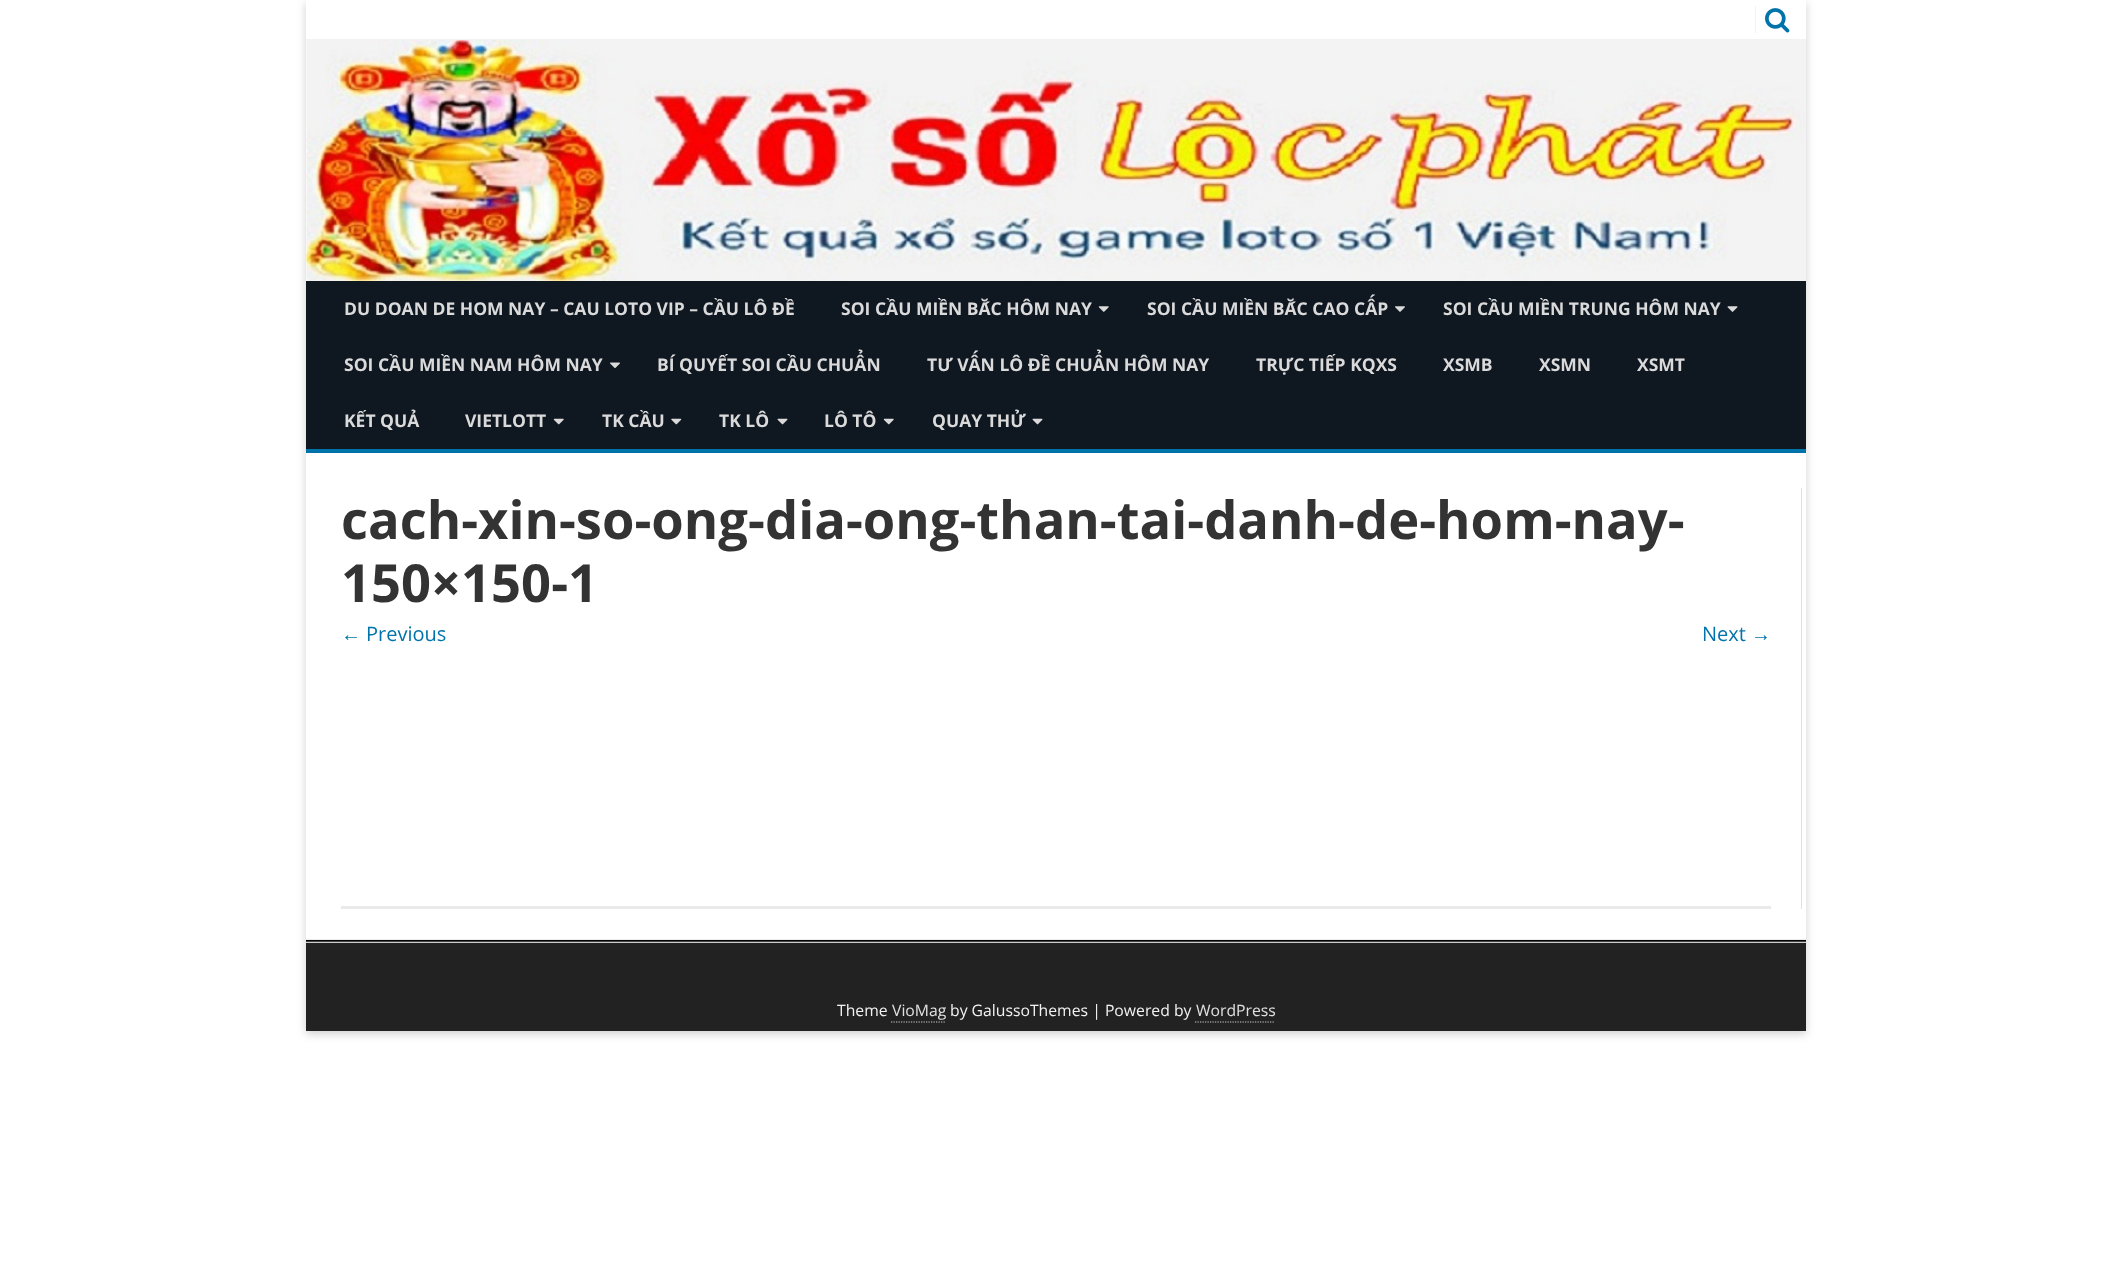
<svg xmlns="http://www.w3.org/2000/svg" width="2112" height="1277">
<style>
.a{font:bold 17.5px Open Sans;fill:#dadada}
.b{font:bold 52.5px Open Sans;fill:#333}
.c{font:20px Liberation Sans;fill:#0073aa}
.d{font:20px Open Sans;fill:#0073aa}
.e{font:15.75px Open Sans;fill:#f2f2f2}
.f{font:15.75px Open Sans;fill:#e0e0e0}
</style>
<rect width="100%" height="100%" fill="#fff"/>
<path fill="#6464644d" filter="blur(4px)" d="M306 3h1500v1031H306z"/>
<path fill="#fff" d="M306 0h1500v939H306z"/>
<path fill="#f2f2f2" d="M306 39h1500v1H306z"/>
<path fill="#f2f2f2" d="M1755 6h1v27H1755z"/>
<image href="1.png" x="1765" y="8" width="25" height="25"/>
<image href="2.png" x="306" y="40" width="1500" height="241"/>
<path fill="#0073aa" d="M306 449h1500v4H306z"/>
<path fill="#0f1721" d="M306 281h1500v168H306z"/>
<image href="3.png" x="1098" y="306" width="11" height="6"/>
<image href="4.png" x="1395" y="306" width="10" height="6"/>
<image href="5.png" x="1727" y="306" width="11" height="6"/>
<image href="6.png" x="610" y="362" width="10" height="6"/>
<image href="7.png" x="553" y="418" width="11" height="7"/>
<image href="8.png" x="671" y="418" width="11" height="7"/>
<image href="9.png" x="777" y="418" width="11" height="7"/>
<image href="7.png" x="883" y="418" width="11" height="7"/>
<image href="9.png" x="1032" y="418" width="11" height="7"/>
<path fill="#e0e0e0" d="M1801 488h1v421H1801z"/>
<path fill="#eaeaea" d="M341 906h1430v3H341z"/>
<path fill="#222" d="M306 943h1500v88H306z"/>
<path fill="#ededed" d="M306 939h1500v1H306z"/>
<path fill="#ccc" d="M306 942h1500v1H306z"/>
<path fill="#040404" d="M306 940h1500v1H306z"/>
<path fill="#444" d="M306 941h1500v1H306z"/>
<path fill="none" stroke="#cdcdcd" stroke-width="1.2" stroke-dasharray="1.25 1.25" d="M891 1022h55"/>
<path fill="none" stroke="#cdcdcd" stroke-width="1.2" stroke-dasharray="1.25 1.25" d="M1195 1022h80"/>
<text class="a" x="344" y="315">DU DOAN DE HOM NAY – CAU LOTO VIP – CẦU LÔ ĐỀ</text>
<text class="a" x="841" y="315">SOI CẦU MIỀN BẮC HÔM NAY</text>
<text class="a" x="1147" y="315">SOI CẦU MIỀN BẮC CAO CẤP</text>
<text class="a" x="1443" y="315">SOI CẦU MIỀN TRUNG HÔM NAY</text>
<text class="a" x="344" y="371">SOI CẦU MIỀN NAM HÔM NAY</text>
<text class="a" x="657" y="371">BÍ QUYẾT SOI CẦU CHUẨN</text>
<text class="a" x="927" y="371">TƯ VẤN LÔ ĐỀ CHUẨN HÔM NAY</text>
<text class="a" x="1256" y="371">TRỰC TIẾP KQXS</text>
<text class="a" x="1443" y="371">XSMB</text>
<text class="a" x="1539" y="371">XSMN</text>
<text class="a" x="1637" y="371">XSMT</text>
<text class="a" x="344" y="427">KẾT QUẢ</text>
<text class="a" x="465" y="427">VIETLOTT</text>
<text class="a" x="602" y="427">TK CẦU</text>
<text class="a" x="719" y="427">TK LÔ</text>
<text class="a" x="824" y="427">LÔ TÔ</text>
<text class="a" x="932" y="427">QUAY THỬ</text>
<text class="b" x="341" y="539">cach-xin-so-ong-dia-ong-than-tai-danh-de-hom-nay-</text>
<text class="b" x="341" y="602">150×150-1</text>
<text class="c" x="341" y="641">←</text>
<text class="d" x="366" y="641">Previous</text>
<text class="d" x="1702" y="641">Next</text>
<text class="c" x="1751" y="641">→</text>
<text class="e" x="837" y="1016">Theme</text>
<text class="f" x="892" y="1016">VioMag</text>
<text class="e" x="950" y="1016">by GalussoThemes | Powered by</text>
<text class="f" x="1196" y="1016">WordPress</text>
</svg>
